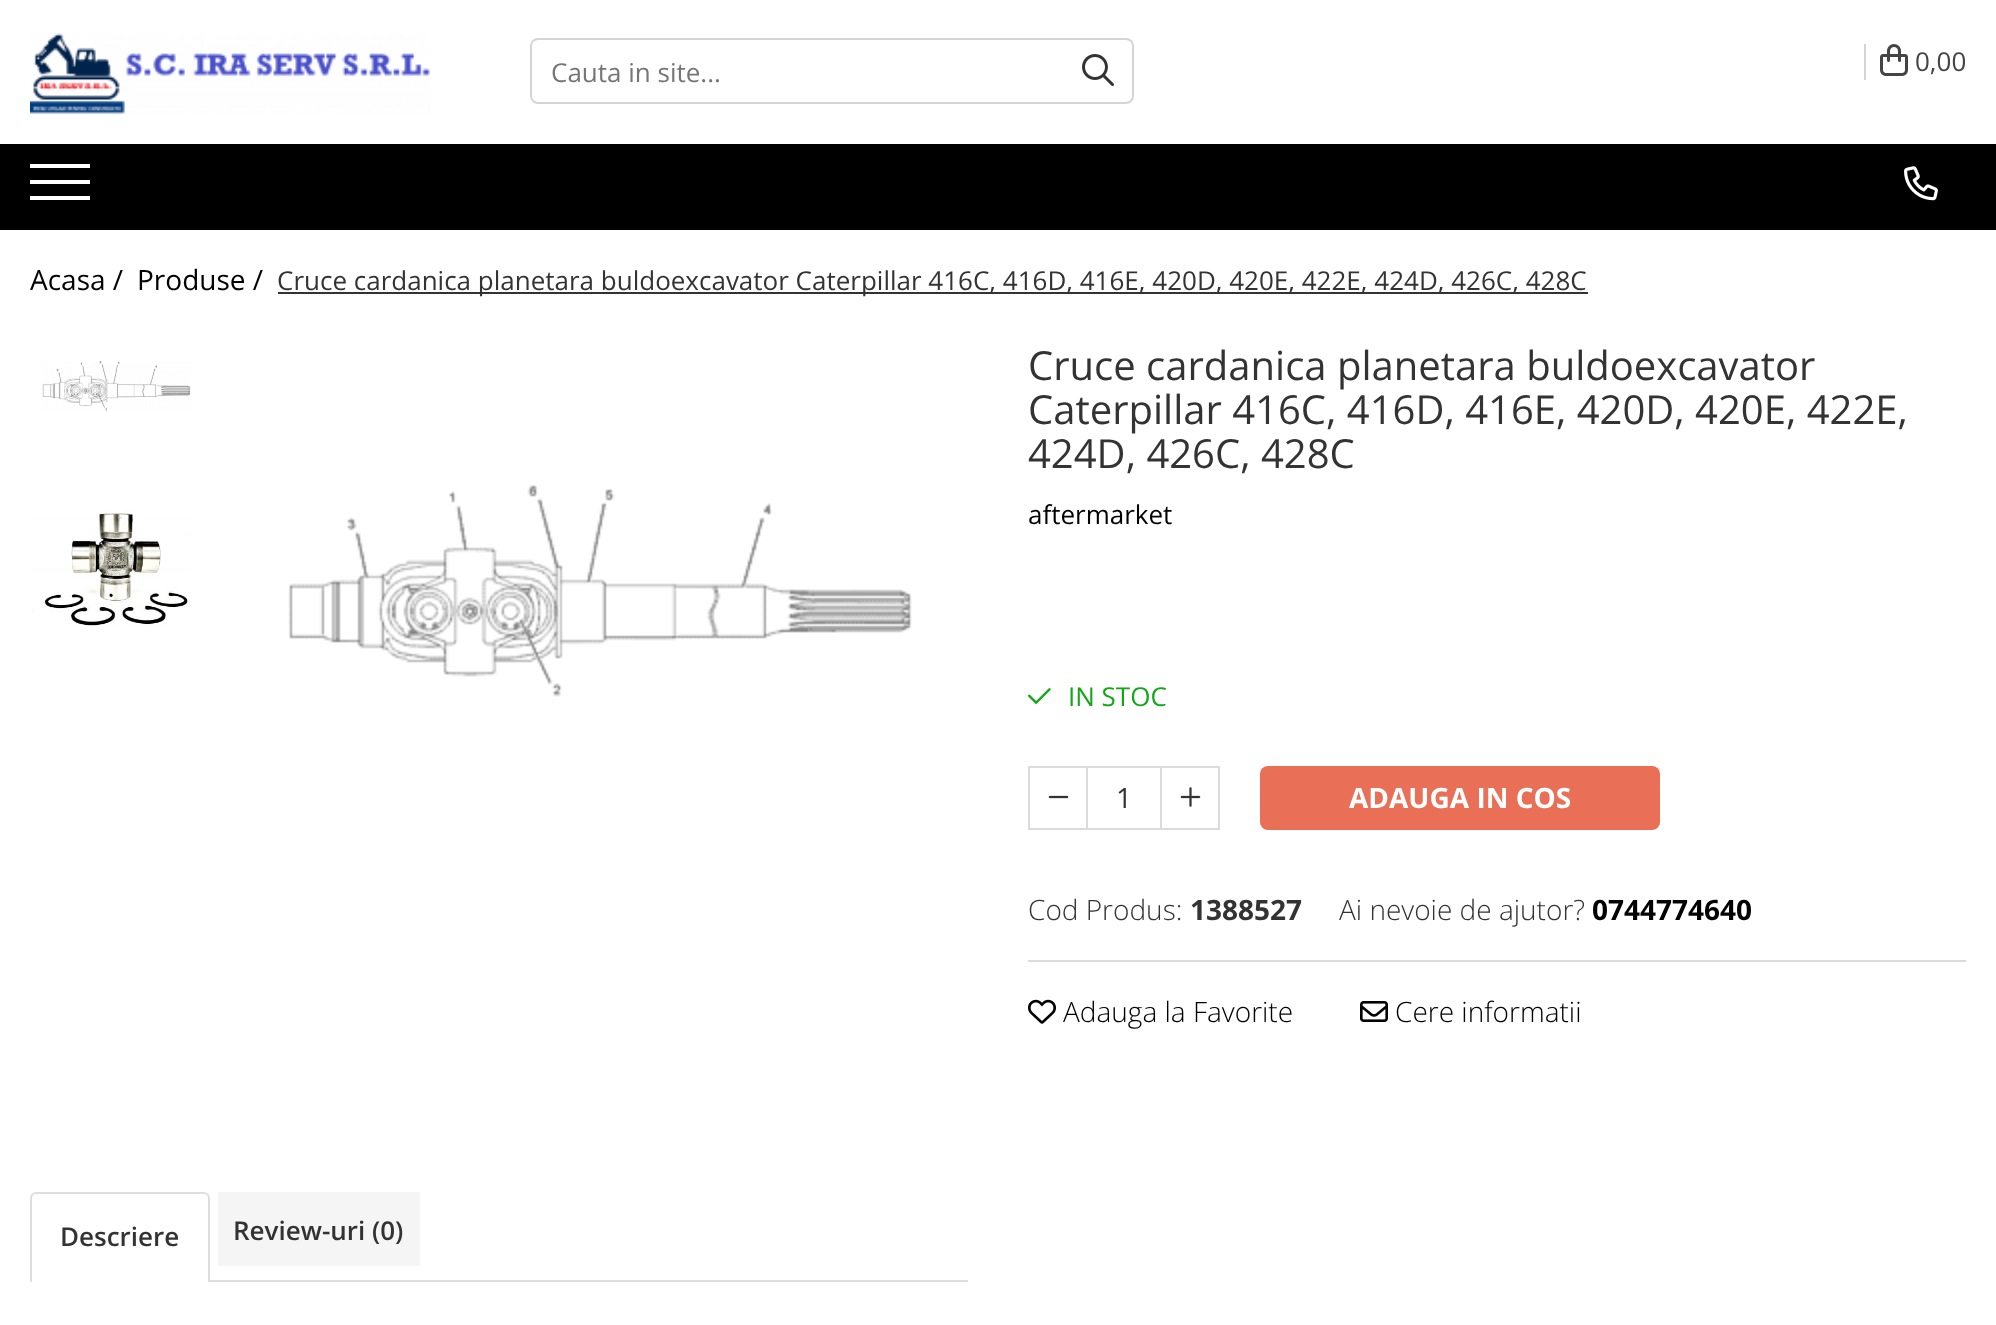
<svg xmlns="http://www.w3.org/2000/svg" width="1996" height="1325">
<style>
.a{font:26px Open Sans;fill:#757575}
.b{font:26px Open Sans;fill:#444}
.c{font:28px Open Sans;fill:#000}
.d{font:26px Open Sans;fill:#333}
.e{font:40px Open Sans;fill:#333}
.f{font:26px Open Sans;fill:#000}
.g{font:26px Open Sans;fill:#11a717}
.h{font:28px Open Sans;fill:#333}
.i{font:bold 28px Open Sans;fill:#fff}
.j{font:300 28px Open Sans;fill:#333}
.k{font:bold 28px Open Sans;fill:#333}
.l{font:bold 28px Open Sans;fill:#000}
.m{font:300 28px Open Sans;fill:#000}
.n{font:600 26px Open Sans;fill:#333}
</style>
<rect width="100%" height="100%" fill="#fff"/>
<image href="1.png" x="30" y="33" width="400" height="81"/>
<rect fill="none" stroke="#d5d5d5" stroke-width="2" x="531" y="39" width="602" height="64" rx="7"/>
<image href="2.png" x="1082" y="54" width="32" height="32"/>
<path fill="#d5d5d5" d="M1864 44h2v36H1864z"/>
<image href="3.png" x="1880" y="44" width="28" height="32"/>
<path fill="#000" d="M0 144h1996v86H0z"/>
<path fill="#fff" d="M30 180h60v4H30z"/>
<path fill="#fff" d="M30 164h60v4H30z"/>
<path fill="#fff" d="M30 196h60v4H30z"/>
<image href="4.png" x="1904" y="166" width="34" height="35"/>
<path fill="#333" d="M278 292h1310v2H278z"/>
<image href="5.png" x="42" y="361" width="149" height="50"/>
<image href="6.png" x="32" y="511" width="157" height="116"/>
<image href="7.png" x="288" y="485" width="624" height="212"/>
<image href="8.png" x="1028" y="688" width="23" height="16"/>
<path fill="none" stroke="#dbdbdb" stroke-width="2" d="M1029 767h58v62H1029z"/>
<image href="9.png" x="1048" y="795" width="21" height="4"/>
<path fill="#dbdbdb" d="M1088 766h72v2H1088z"/>
<path fill="#dbdbdb" d="M1088 828h72v2H1088z"/>
<path fill="none" stroke="#dbdbdb" stroke-width="2" d="M1161 767h58v62H1161z"/>
<image href="10.png" x="1180" y="787" width="21" height="20"/>
<rect fill="#e96f56" x="1260" y="766" width="400" height="64" rx="8"/>
<path fill="#dbdbdb" d="M1028 960h938v2H1028z"/>
<image href="11.png" x="1028" y="999" width="28" height="25"/>
<image href="12.png" x="1360" y="1001" width="28" height="21"/>
<path fill="#dfdfdf" fill-rule="evenodd" d="M36 1192h168c3 0 6 3 6 6v84h-180v-84c0-3 3-6 6-6zm0 2h168c2 0 4 2 4 4v84h-176v-84c0-2 2-4 4-4z"/>
<path fill="#f5f5f5" d="M218 1192h202v74H218z"/>
<path fill="#dfdfdf" d="M210 1280h758v2H210z"/>
<text class="a" x="551" y="82">Cauta in site...</text>
<text class="b" x="1915" y="71">0,00</text>
<text class="c" x="30" y="290">Acasa /</text>
<text class="c" x="137" y="290">Produse /</text>
<text class="d" x="277" y="290">Cruce cardanica planetara buldoexcavator Caterpillar 416C, 416D, 416E, 420D, 420E, 422E, 424D, 426C, 428C</text>
<text class="e" x="1028" y="380">Cruce cardanica planetara buldoexcavator</text>
<text class="e" x="1028" y="424">Caterpillar 416C, 416D, 416E, 420D, 420E, 422E,</text>
<text class="e" x="1028" y="468">424D, 426C, 428C</text>
<text class="f" x="1028" y="524">aftermarket</text>
<text class="g" x="1068" y="706">IN STOC</text>
<text class="h" x="1116" y="808">1</text>
<text class="i" x="1349" y="808">ADAUGA IN COS</text>
<text class="j" x="1028" y="920">Cod Produs:</text>
<text class="k" x="1190" y="920">1388527</text>
<text class="j" x="1339" y="920">Ai nevoie de ajutor?</text>
<text class="l" x="1592" y="920">0744774640</text>
<text class="m" x="1063" y="1022">Adauga la Favorite</text>
<text class="m" x="1395" y="1022">Cere informatii</text>
<text class="n" x="60" y="1246">Descriere</text>
<text class="n" x="233" y="1240">Review-uri (0)</text>
</svg>
